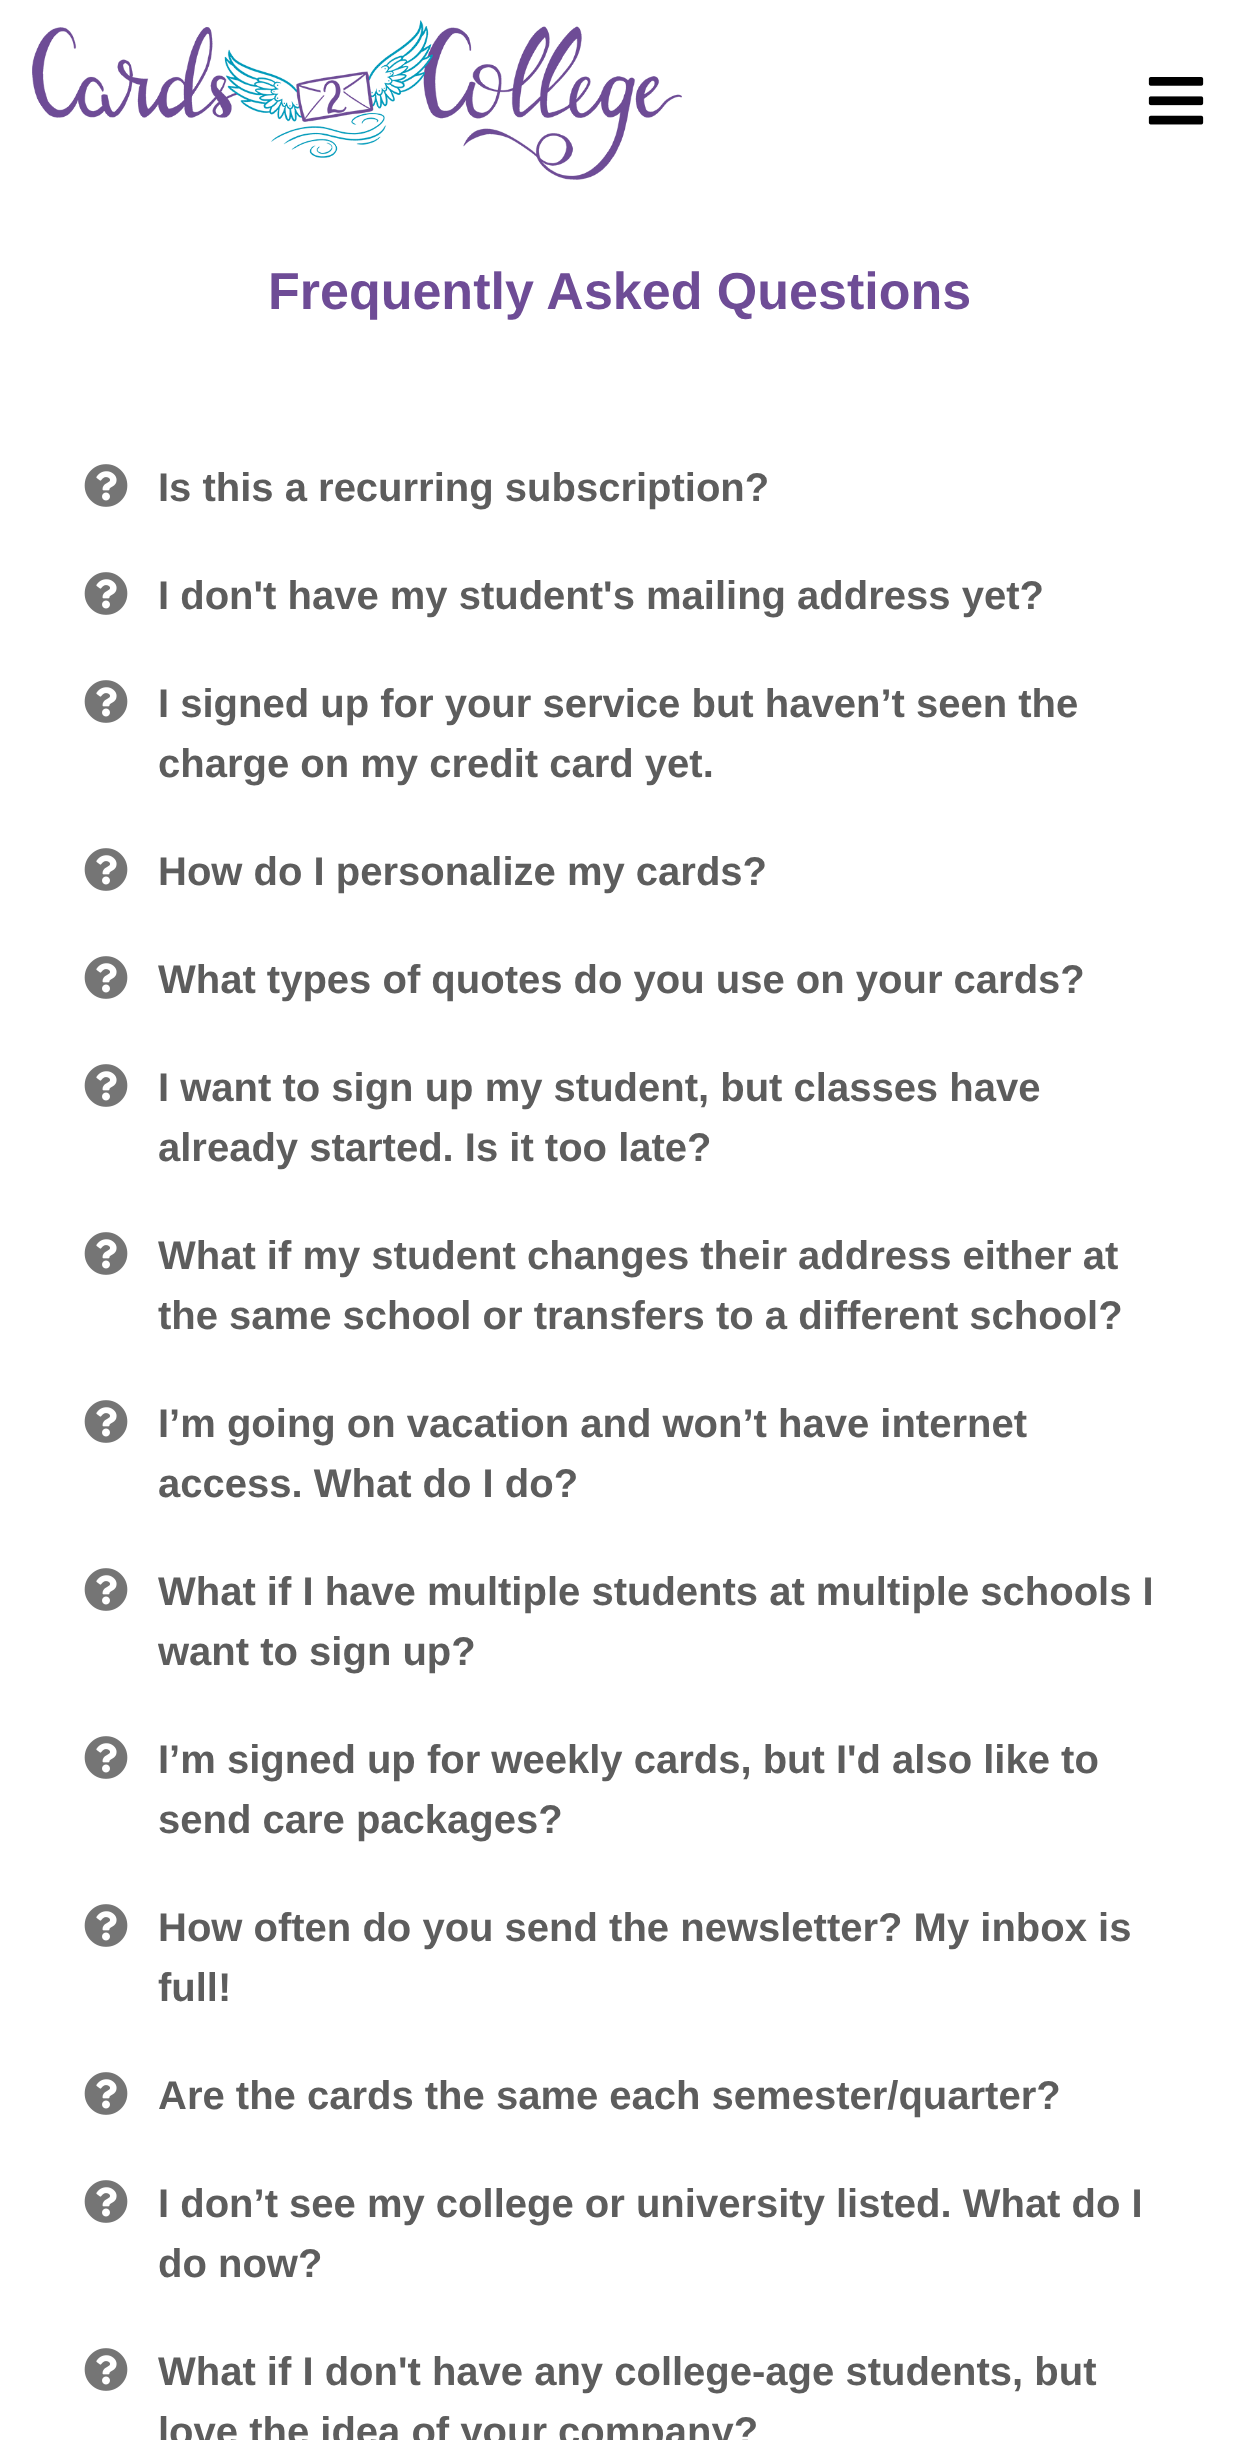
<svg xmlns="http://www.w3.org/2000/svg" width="1239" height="2440">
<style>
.a{font:bold 52px Liberation Sans;fill:#6e4c96}
.b{font:bold 40px Liberation Sans;fill:#5d5d5d}
</style>
<rect width="100%" height="100%" fill="#fff"/>
<image href="1.png" x="32" y="20" width="650" height="160"/>
<image href="2.png" x="1148" y="77" width="56" height="48"/>
<image href="3.png" x="84" y="464" width="44" height="43"/>
<image href="3.png" x="84" y="572" width="44" height="43"/>
<image href="3.png" x="84" y="680" width="44" height="43"/>
<image href="3.png" x="84" y="848" width="44" height="43"/>
<image href="3.png" x="84" y="956" width="44" height="43"/>
<image href="3.png" x="84" y="1064" width="44" height="43"/>
<image href="3.png" x="84" y="1232" width="44" height="43"/>
<image href="3.png" x="84" y="1400" width="44" height="43"/>
<image href="3.png" x="84" y="1568" width="44" height="43"/>
<image href="3.png" x="84" y="1736" width="44" height="43"/>
<image href="3.png" x="84" y="1904" width="44" height="43"/>
<image href="3.png" x="84" y="2072" width="44" height="43"/>
<image href="3.png" x="84" y="2180" width="44" height="43"/>
<image href="3.png" x="84" y="2348" width="44" height="43"/>
<text class="a" x="268" y="309">Frequently Asked Questions</text>
<text class="b" x="158" y="501">Is this a recurring subscription?</text>
<text class="b" x="158" y="609">I don't have my student's mailing address yet?</text>
<text class="b" x="158" y="717">I signed up for your service but haven’t seen the</text>
<text class="b" x="158" y="777">charge on my credit card yet.</text>
<text class="b" x="158" y="885">How do I personalize my cards?</text>
<text class="b" x="158" y="993">What types of quotes do you use on your cards?</text>
<text class="b" x="158" y="1101">I want to sign up my student, but classes have</text>
<text class="b" x="158" y="1161">already started. Is it too late?</text>
<text class="b" x="158" y="1269">What if my student changes their address either at</text>
<text class="b" x="158" y="1329">the same school or transfers to a different school?</text>
<text class="b" x="158" y="1437">I’m going on vacation and won’t have internet</text>
<text class="b" x="158" y="1497">access. What do I do?</text>
<text class="b" x="158" y="1605">What if I have multiple students at multiple schools I</text>
<text class="b" x="158" y="1665">want to sign up?</text>
<text class="b" x="158" y="1773">I’m signed up for weekly cards, but I'd also like to</text>
<text class="b" x="158" y="1833">send care packages?</text>
<text class="b" x="158" y="1941">How often do you send the newsletter? My inbox is</text>
<text class="b" x="158" y="2001">full!</text>
<text class="b" x="158" y="2109">Are the cards the same each semester/quarter?</text>
<text class="b" x="158" y="2217">I don’t see my college or university listed. What do I</text>
<text class="b" x="158" y="2277">do now?</text>
<text class="b" x="158" y="2385">What if I don't have any college-age students, but</text>
<text class="b" x="158" y="2445">love the idea of your company?</text>
</svg>
